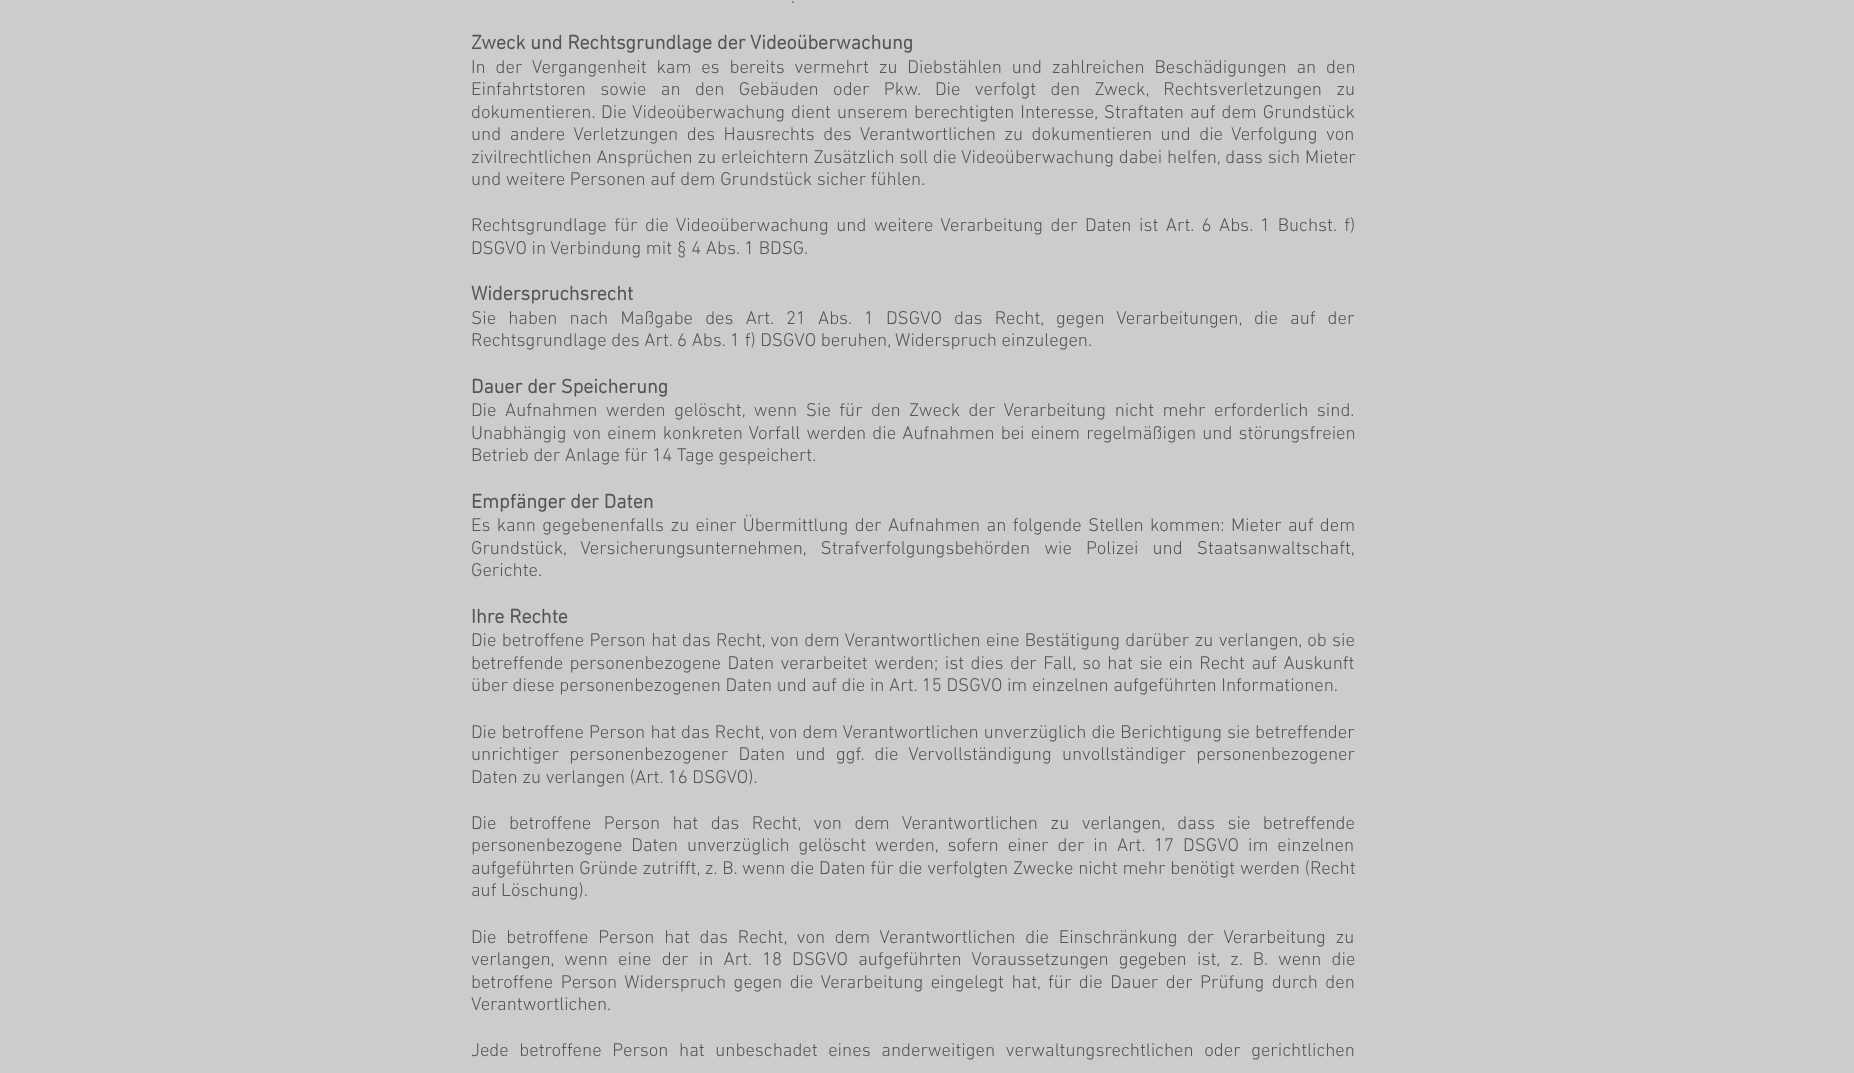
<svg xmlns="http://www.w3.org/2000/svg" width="1854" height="1073">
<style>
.a{font:300 18.75px 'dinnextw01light';fill:#555}
.b{font:bold 20px 'dinnextw01light';fill:#555}
</style>
<rect width="100%" height="100%" fill="#ccc"/>
<text class="a" x="791" y="3">.</text>
<text class="b" x="471" y="49">Zweck und Rechtsgrundlage der Videoüberwachung</text>
<text class="a" x="471" y="73" word-spacing="5.25">In der Vergangenheit kam es bereits vermehrt zu Diebstählen und zahlreichen Beschädigungen an den</text>
<text class="a" x="471" y="95" word-spacing="9.75">Einfahrtstoren sowie an den Gebäuden oder Pkw. Die verfolgt den Zweck, Rechtsverletzungen zu</text>
<text class="a" x="471" y="118" word-spacing="1.4">dokumentieren. Die Videoüberwachung dient unserem berechtigten Interesse, Straftaten auf dem Grundstück</text>
<text class="a" x="471" y="140" word-spacing="3.9">und andere Verletzungen des Hausrechts des Verantwortlichen zu dokumentieren und die Verfolgung von</text>
<text class="a" x="471" y="163" word-spacing="0.25">zivilrechtlichen Ansprüchen zu erleichtern Zusätzlich soll die Videoüberwachung dabei helfen, dass sich Mieter</text>
<text class="a" x="471" y="185">und weitere Personen auf dem Grundstück sicher fühlen.</text>
<text class="a" x="471" y="231" word-spacing="2.9">Rechtsgrundlage für die Videoüberwachung und weitere Verarbeitung der Daten ist Art. 6 Abs. 1 Buchst. f)</text>
<text class="a" x="471" y="254">DSGVO in Verbindung mit § 4 Abs. 1 BDSG.</text>
<text class="b" x="471" y="300">Widerspruchsrecht</text>
<text class="a" x="471" y="324" word-spacing="7.5">Sie haben nach Maßgabe des Art. 21 Abs. 1 DSGVO das Recht, gegen Verarbeitungen, die auf der</text>
<text class="a" x="471" y="346">Rechtsgrundlage des Art. 6 Abs. 1 f) DSGVO beruhen, Widerspruch einzulegen.</text>
<text class="b" x="471" y="393">Dauer der Speicherung</text>
<text class="a" x="471" y="416" word-spacing="3.9">Die Aufnahmen werden gelöscht, wenn Sie für den Zweck der Verarbeitung nicht mehr erforderlich sind.</text>
<text class="a" x="471" y="439" word-spacing="1.5">Unabhängig von einem konkreten Vorfall werden die Aufnahmen bei einem regelmäßigen und störungsfreien</text>
<text class="a" x="471" y="461">Betrieb der Anlage für 14 Tage gespeichert.</text>
<text class="b" x="471" y="508">Empfänger der Daten</text>
<text class="a" x="471" y="531" word-spacing="1.75">Es kann gegebenenfalls zu einer Übermittlung der Aufnahmen an folgende Stellen kommen: Mieter auf dem</text>
<text class="a" x="471" y="554" word-spacing="9.5">Grundstück, Versicherungsunternehmen, Strafverfolgungsbehörden wie Polizei und Staatsanwaltschaft,</text>
<text class="a" x="471" y="576">Gerichte.</text>
<text class="b" x="471" y="623">Ihre Rechte</text>
<text class="a" x="471" y="646" word-spacing="0.75">Die betroffene Person hat das Recht, von dem Verantwortlichen eine Bestätigung darüber zu verlangen, ob sie</text>
<text class="a" x="471" y="669" word-spacing="1.9">betreffende personenbezogene Daten verarbeitet werden; ist dies der Fall, so hat sie ein Recht auf Auskunft</text>
<text class="a" x="471" y="691">über diese personenbezogenen Daten und auf die in Art. 15 DSGVO im einzelnen aufgeführten Informationen.</text>
<text class="a" x="471" y="738" word-spacing="0.5">Die betroffene Person hat das Recht, von dem Verantwortlichen unverzüglich die Berichtigung sie betreffender</text>
<text class="a" x="471" y="760" word-spacing="5.75">unrichtiger personenbezogener Daten und ggf. die Vervollständigung unvollständiger personenbezogener</text>
<text class="a" x="471" y="783">Daten zu verlangen (Art. 16 DSGVO).</text>
<text class="a" x="471" y="829" word-spacing="7.9">Die betroffene Person hat das Recht, von dem Verantwortlichen zu verlangen, dass sie betreffende</text>
<text class="a" x="471" y="851" word-spacing="4.4">personenbezogene Daten unverzüglich gelöscht werden, sofern einer der in Art. 17 DSGVO im einzelnen</text>
<text class="a" x="471" y="874" word-spacing="0.25">aufgeführten Gründe zutrifft, z. B. wenn die Daten für die verfolgten Zwecke nicht mehr benötigt werden (Recht</text>
<text class="a" x="471" y="896">auf Löschung).</text>
<text class="a" x="471" y="943" word-spacing="5.1">Die betroffene Person hat das Recht, von dem Verantwortlichen die Einschränkung der Verarbeitung zu</text>
<text class="a" x="471" y="965" word-spacing="5.6">verlangen, wenn eine der in Art. 18 DSGVO aufgeführten Voraussetzungen gegeben ist, z. B. wenn die</text>
<text class="a" x="471" y="988" word-spacing="2.9">betroffene Person Widerspruch gegen die Verarbeitung eingelegt hat, für die Dauer der Prüfung durch den</text>
<text class="a" x="471" y="1010">Verantwortlichen.</text>
<text class="a" x="471" y="1056" word-spacing="6">Jede betroffene Person hat unbeschadet eines anderweitigen verwaltungsrechtlichen oder gerichtlichen</text>
</svg>
